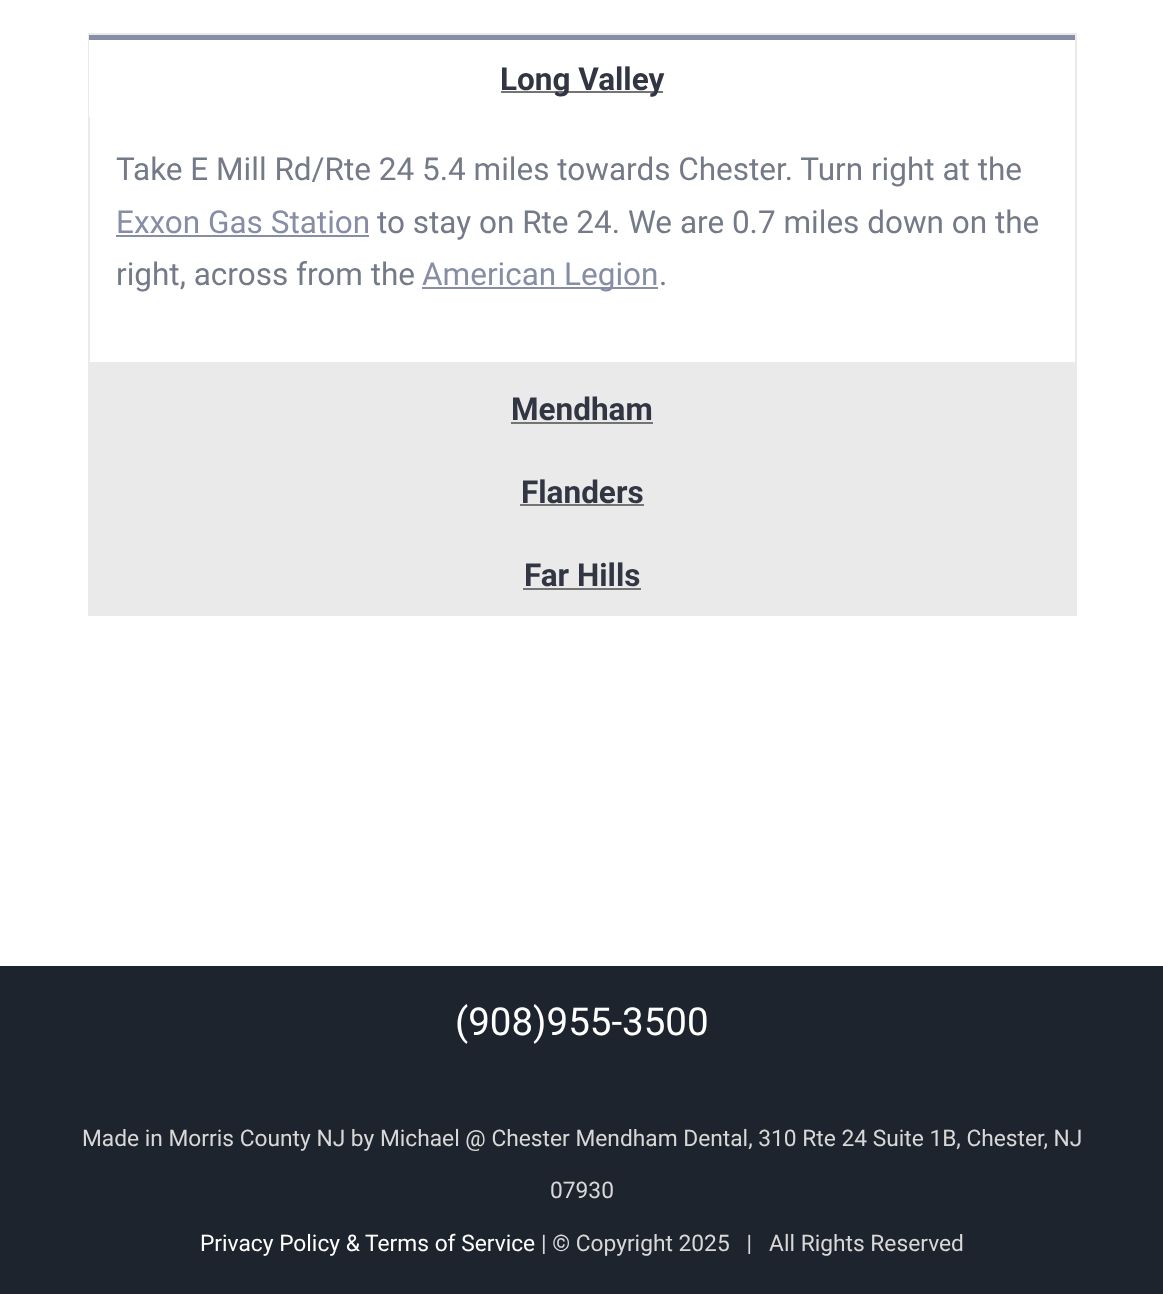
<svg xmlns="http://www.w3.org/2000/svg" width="1163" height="1294">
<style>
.a{font:bold 31.5px Roboto;fill:#323643}
.b{font:31.5px Roboto;fill:#747a87}
.c{font:31.5px Roboto;fill:#878da5}
.d{font:38.5px Roboto;fill:#fff}
.e{font:22.75px Roboto;fill:#d8d8d8}
.f{font:22.75px Roboto;fill:#fff}
</style>
<rect width="100%" height="100%" fill="#fff"/>
<path fill="#ebeaea" d="M88 33h988v2H88z"/>
<path fill="#ebeaea" d="M1075 33h2v331H1075z"/>
<path fill="#ebeaea" d="M88 33h2v84H88z"/>
<path fill="#fff" d="M89 40h1v77H89z"/>
<path fill="#878da5" d="M89 35h986v5H89z"/>
<path fill="#747474" d="M501 91h162v2H501z"/>
<path fill="#ebeaea" d="M88 362h988v4H88z"/>
<path fill="#ebeaea" d="M88 117h2v329H88z"/>
<path fill="#878da5" d="M116 235h253v2H116z"/>
<path fill="#878da5" d="M422 287h236v2H422z"/>
<path fill="#ebeaea" d="M1075 364h2v82H1075z"/>
<path fill="#ebeaea" d="M90 366h985v80H90z"/>
<path fill="#747474" d="M511 422h142v2H511z"/>
<path fill="#ebeaea" d="M88 446h988v2H88z"/>
<path fill="#ebeaea" d="M1075 446h2v84H1075z"/>
<path fill="#ebeaea" d="M88 446h2v84H88z"/>
<path fill="#ebeaea" d="M90 448h985v82H90z"/>
<path fill="#747474" d="M520 504h124v2H520z"/>
<path fill="#ebeaea" d="M88 530h988v2H88z"/>
<path fill="#ebeaea" d="M1075 530h2v86H1075z"/>
<path fill="#ebeaea" d="M88 530h2v86H88z"/>
<path fill="#ebeaea" d="M89 614h986v2H89z"/>
<path fill="#ebeaea" d="M90 532h985v82H90z"/>
<path fill="#747474" d="M523 588h118v2H523z"/>
<path fill="#1d242d" d="M0 966h1163v328H0z"/>
<text class="a" x="500" y="90">Long Valley</text>
<text class="b" x="116" y="180">Take E Mill Rd/Rte 24 5.4 miles towards Chester. Turn right at the</text>
<text class="c" x="116" y="233">Exxon Gas Station</text>
<text class="b" x="377" y="233">to stay on Rte 24. We are 0.7 miles down on the</text>
<text class="b" x="116" y="285">right, across from the</text>
<text class="c" x="422" y="285">American Legion</text>
<text class="b" x="659" y="285">.</text>
<text class="a" x="511" y="420">Mendham</text>
<text class="a" x="521" y="503">Flanders</text>
<text class="a" x="524" y="586">Far Hills</text>
<text class="d" x="455" y="1035">(908)955-3500</text>
<text class="e" x="82" y="1146">Made in Morris County NJ by Michael @ Chester Mendham Dental, 310 Rte 24 Suite 1B, Chester, NJ</text>
<text class="e" x="550" y="1198">07930</text>
<text class="f" x="200" y="1251">Privacy Policy &amp; Terms of Service</text>
<text class="e" xml:space="preserve" x="541" y="1251">| © Copyright 2025   |   All Rights Reserved</text>
</svg>
